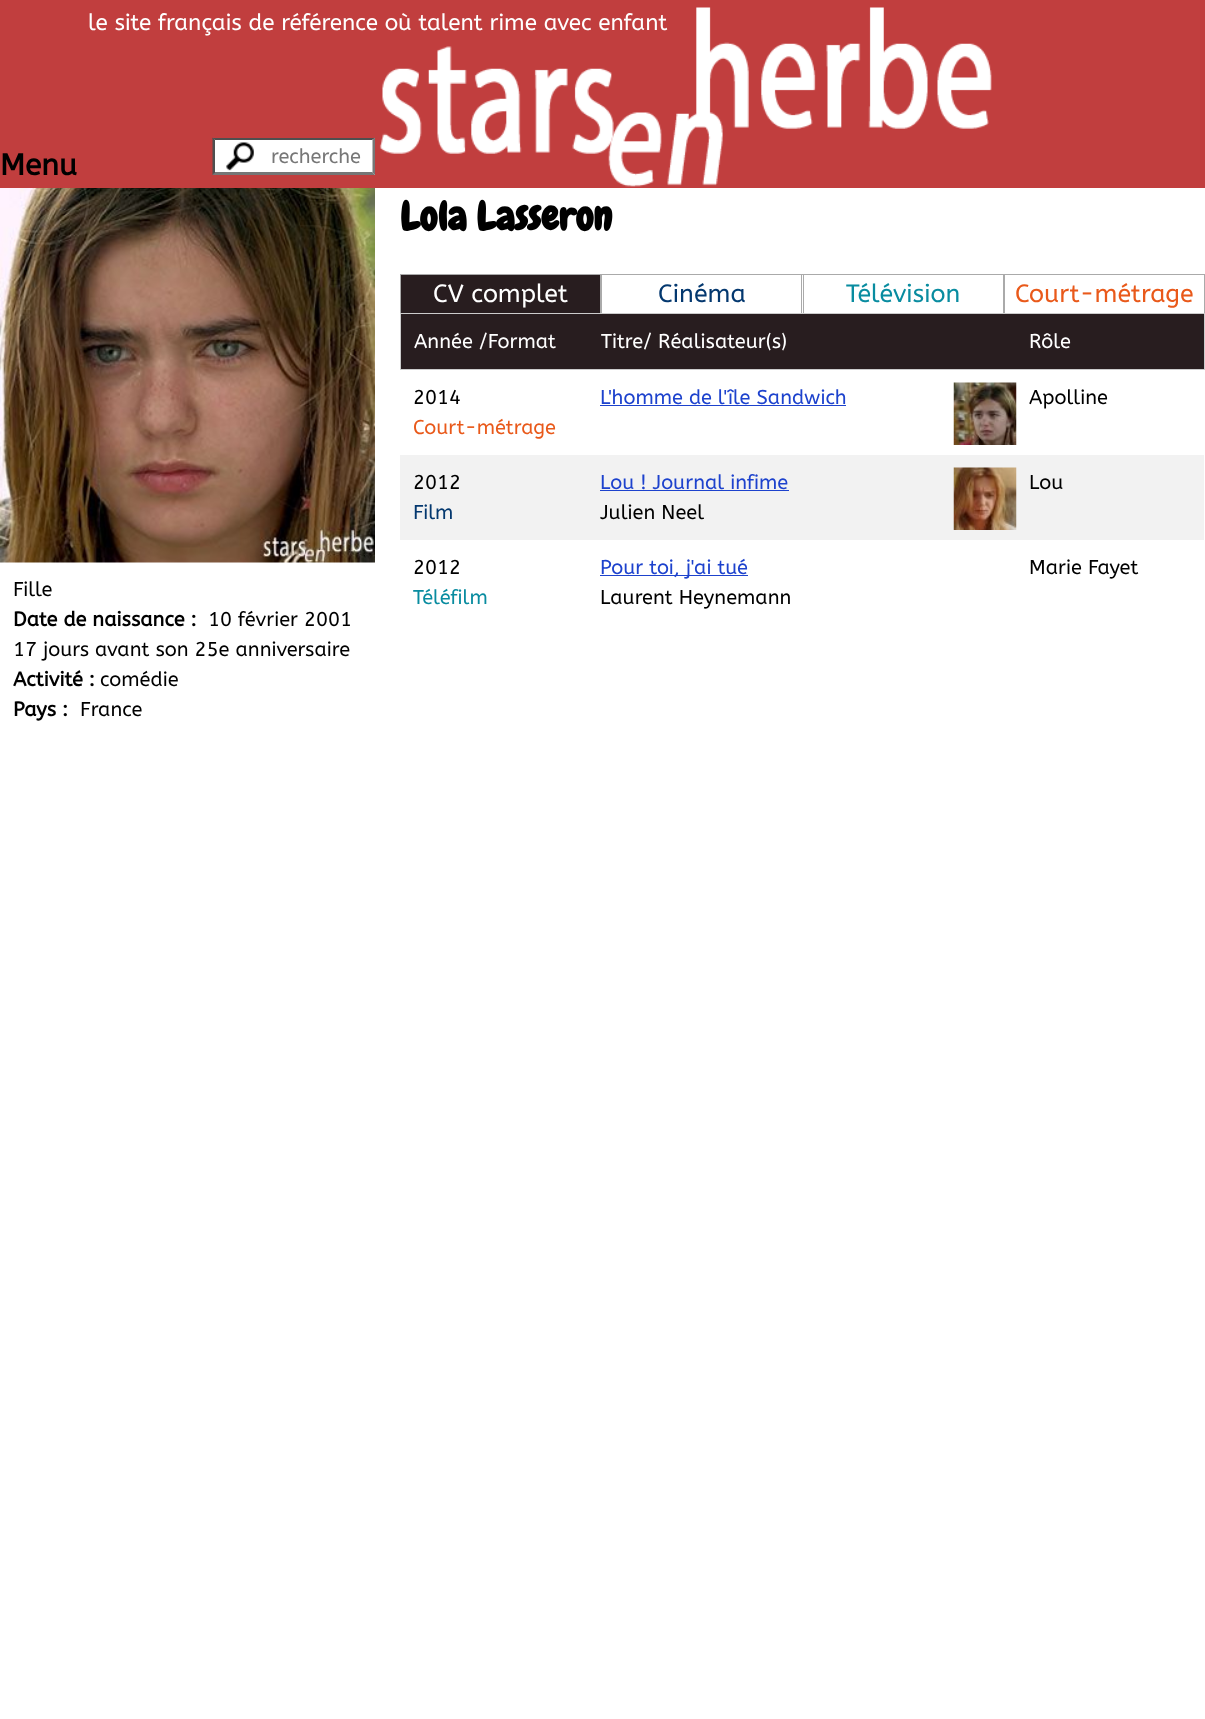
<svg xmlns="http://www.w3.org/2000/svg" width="1205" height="1719">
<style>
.a{font:22.5px ABeeZee;fill:#fff}
.b{font:20px ABeeZee;fill:#777}
.c{font:bold 30px ABeeZee;fill:#000}
.d{font:20px ABeeZee;fill:#000}
.e{font:bold 20px ABeeZee;fill:#000}
.f{font:bold 40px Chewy;fill:#000}
.g{font:25px ABeeZee;fill:#fff}
.h{font:25px ABeeZee;fill:#04386f}
.i{font:25px ABeeZee;fill:#098ca0}
.j{font:25px ABeeZee;fill:#e9591a}
.k{font:20px ABeeZee;fill:#fff}
.l{font:20px ABeeZee;fill:#e9591a}
.m{font:20px ABeeZee;fill:#1d42cd}
.n{font:20px ABeeZee;fill:#04386f}
.o{font:20px ABeeZee;fill:#098ca0}
</style>
<rect width="100%" height="100%" fill="#fff"/>
<path fill="#c13e3e" d="M0 0h1205v188H0z"/>
<image href="1.png" x="379" y="7" width="613" height="180"/>
<path fill="#fff" d="M213 138h162v37H213z"/>
<image href="2.png" x="226" y="142" width="28" height="29"/>
<path fill="#4f4f4f" d="M212 138h163l-3 2h-157z"/>
<path fill="#767676" d="M375 137.5v37.5l-2.5-2.5v-32.5z"/>
<path fill="#767676" d="M375 175h-163l3-3h157z"/>
<path fill="#4f4f4f" d="M212.5 175v-37.5l2.5 2.5v32.5z"/>
<image href="3.png" x="0" y="188" width="375" height="375"/>
<path fill="#281d1f" d="M401 275h199v38H401z"/>
<path fill="#aaa" d="M400 274h805v1H400z"/>
<path fill="#aaa" d="M600 274h2v39H600z"/>
<path fill="#aaa" d="M400 274h1v39H400z"/>
<path fill="#aaa" d="M801 274h1v39H801z"/>
<path fill="#aaa" d="M1003 274h2v39H1003z"/>
<path fill="#aaa" d="M803 274h1v39H803z"/>
<path fill="#aaa" d="M1204 274h1v39H1204z"/>
<path fill="#281d1f" d="M401 314h803v55H401z"/>
<path fill="#ccc" d="M400 313h805v1H400z"/>
<path fill="#ccc" d="M1204 313h1v57H1204z"/>
<path fill="#ccc" d="M400 369h805v1H400z"/>
<path fill="#ccc" d="M400 313h1v57H400z"/>
<path fill="#1d42cd" d="M600 405h246v1H600z"/>
<image href="4.png" x="953" y="382" width="64" height="63"/>
<path fill="#f2f2f2" d="M400 455h804v85H400z"/>
<path fill="#1d42cd" d="M600 490h189v1H600z"/>
<image href="5.png" x="953" y="467" width="64" height="63"/>
<path fill="#1d42cd" d="M600 575h148v1H600z"/>
<text class="a" x="88" y="30">le site français de référence où talent rime avec enfant</text>
<text class="b" x="271" y="163">recherche</text>
<text class="c" x="0" y="175">Menu</text>
<text class="d" x="13" y="596">Fille</text>
<text class="e" x="13" y="626">Date de naissance :</text>
<text class="d" x="208" y="626">10 février 2001</text>
<text class="d" x="13" y="656">17 jours avant son 25e anniversaire</text>
<text class="e" x="13" y="686">Activité :</text>
<text class="d" x="100" y="686">comédie</text>
<text class="e" x="13" y="716">Pays :</text>
<text class="d" x="80" y="716">France</text>
<text class="f" x="400" y="230">Lola Lasseron</text>
<text class="g" x="433" y="302">CV complet</text>
<text class="h" x="658" y="302">Cinéma</text>
<text class="i" x="846" y="302">Télévision</text>
<text class="j" x="1015" y="302">Court-métrage</text>
<text class="k" x="414" y="348">Année /Format</text>
<text class="k" x="601" y="348">Titre/ Réalisateur(s)</text>
<text class="k" x="1029" y="348">Rôle</text>
<text class="d" x="413" y="404">2014</text>
<text class="l" x="413" y="434">Court-métrage</text>
<text class="m" x="600" y="404">L'homme de l'île Sandwich</text>
<text class="d" x="1029" y="404">Apolline</text>
<text class="d" x="413" y="489">2012</text>
<text class="n" x="413" y="519">Film</text>
<text class="m" x="600" y="489">Lou ! Journal infime</text>
<text class="d" x="600" y="519">Julien Neel</text>
<text class="d" x="1029" y="489">Lou</text>
<text class="d" x="413" y="574">2012</text>
<text class="o" x="413" y="604">Téléfilm</text>
<text class="m" x="600" y="574">Pour toi, j'ai tué</text>
<text class="d" x="600" y="604">Laurent Heynemann</text>
<text class="d" x="1029" y="574">Marie Fayet</text>
</svg>
